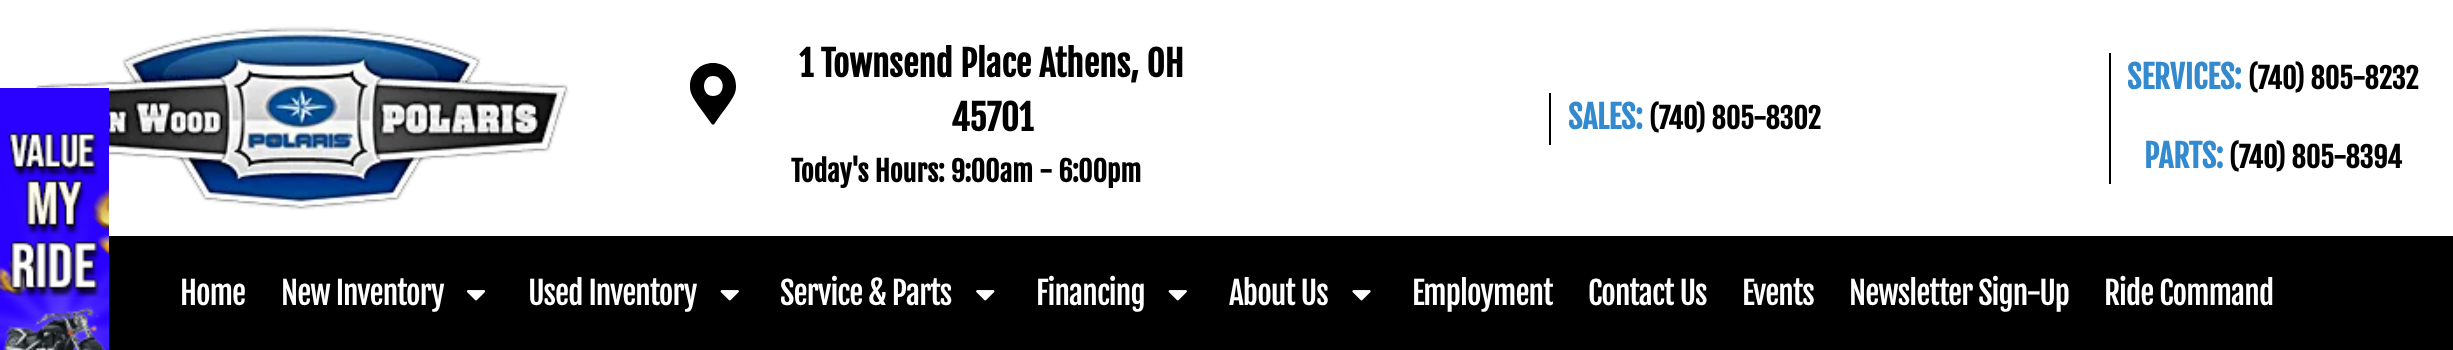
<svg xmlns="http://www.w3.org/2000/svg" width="2453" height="350">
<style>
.a{font:bold 35px Fjalla One;fill:#000}
.b{font:bold 28px Fjalla One;fill:#000}
.c{font:bold 31.5px Fjalla One;fill:#338ace}
.d{font:31.5px Fjalla One;letter-spacing:-0.9px;fill:#fff}
</style>
<rect width="100%" height="100%" fill="#fff"/>
<image href="2.png" x="35" y="26" width="534" height="184"/>
<image href="1.png" x="0" y="88" width="109" height="262"/>
<path fill="#000" d="M711 123c-18-25-21-28-21-37c0-13 10-23 23-23c13 0 23 10 23 23c0 9-3 12-21 37c-1 2-3 2-4 0zm2-27c13 0 13-20 0-20c-12 0-12 20 0 20z"/>
<path fill="#000" d="M1549 93h2v52H1549z"/>
<path fill="#000" d="M2109 53h2v131H2109z"/>
<path fill="#000" d="M109 236h2344v114H109z"/>
<image href="3.png" x="466" y="290" width="20" height="11"/>
<image href="4.png" x="720" y="290" width="19" height="11"/>
<image href="5.png" x="976" y="290" width="19" height="11"/>
<image href="4.png" x="1168" y="290" width="19" height="11"/>
<image href="6.png" x="1352" y="290" width="19" height="11"/>
<text class="a" x="799" y="77">1 Townsend Place Athens, OH</text>
<text class="a" x="951" y="131">45701</text>
<text class="b" x="791" y="182">Today's Hours: 9:00am - 6:00pm</text>
<text class="c" x="1568" y="129">SALES:</text>
<text class="b" x="1649" y="129">(740) 805-8302</text>
<text class="c" x="2127" y="89">SERVICES:</text>
<text class="b" x="2248" y="89">(740) 805-8232</text>
<text class="c" x="2144" y="168">PARTS:</text>
<text class="b" x="2229" y="168">(740) 805-8394</text>
<text class="d" x="180" y="305">Home</text>
<text class="d" x="281" y="305">New Inventory</text>
<text class="d" x="528" y="305">Used Inventory</text>
<text class="d" x="780" y="305">Service &amp; Parts</text>
<text class="d" x="1036" y="305">Financing</text>
<text class="d" x="1229" y="305">About Us</text>
<text class="d" x="1412" y="305">Employment</text>
<text class="d" x="1588" y="305">Contact Us</text>
<text class="d" x="1742" y="305">Events</text>
<text class="d" x="1849" y="305">Newsletter Sign-Up</text>
<text class="d" x="2104" y="305">Ride Command</text>
</svg>
